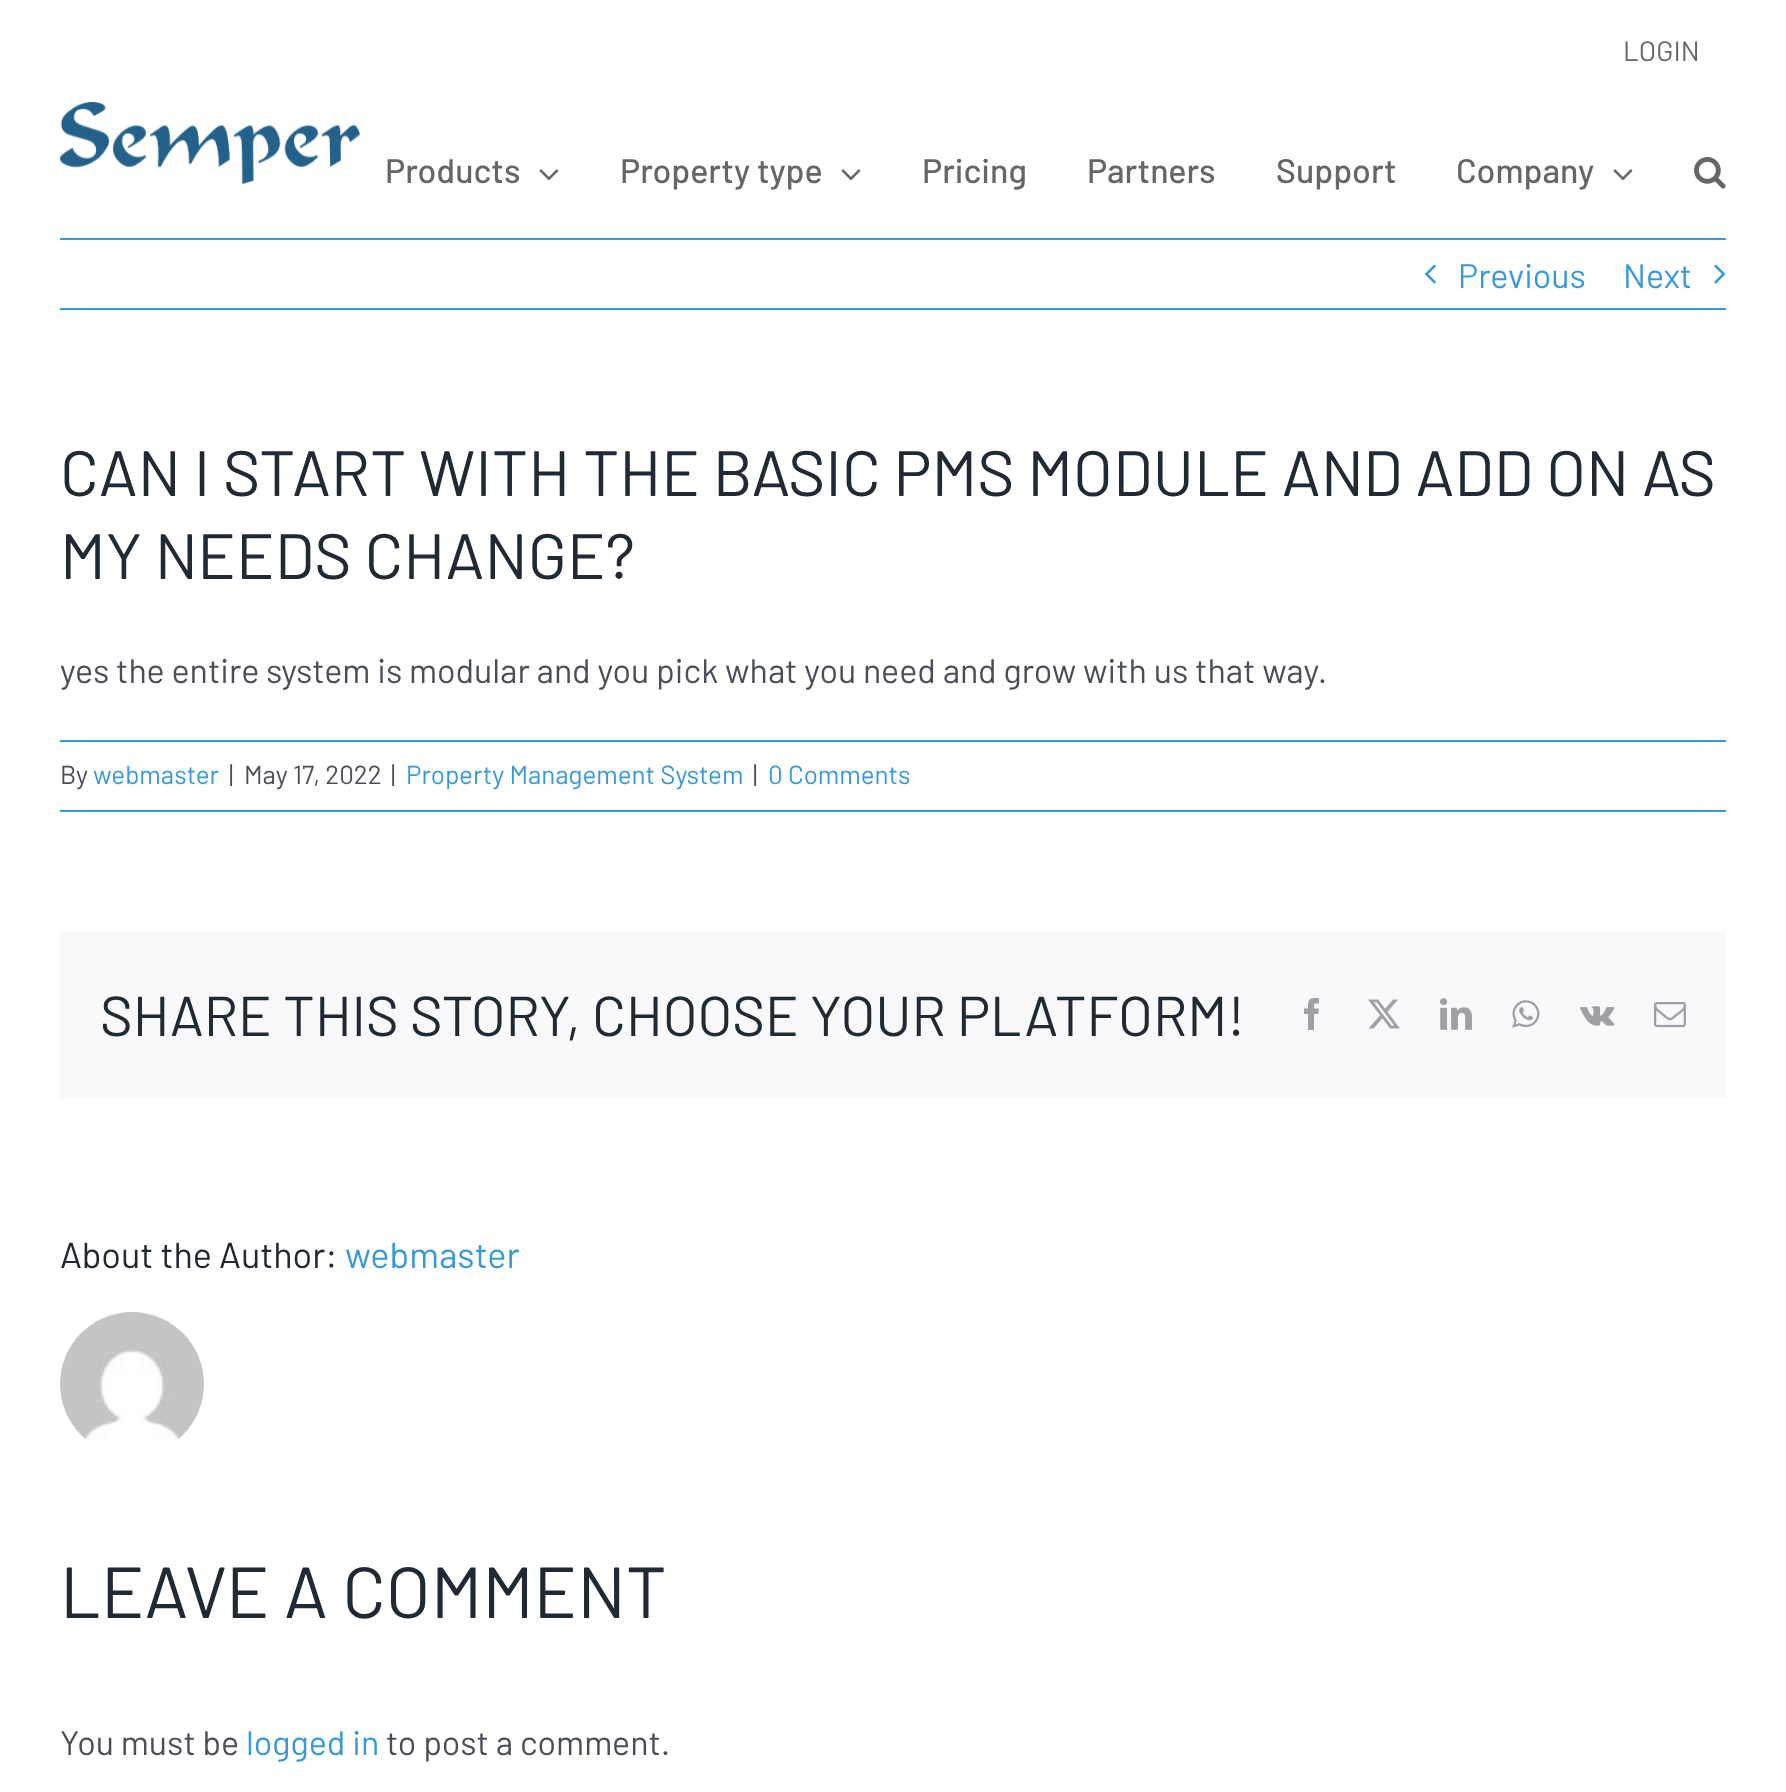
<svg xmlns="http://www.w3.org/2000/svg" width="1786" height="1792">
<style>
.a{font:28px Barlow;fill:#666}
.b{font:500 34px Barlow;fill:#666}
.c{font:34px Barlow;fill:#3899d9}
.d{font:64px Barlow;fill:#212934}
.e{font:34px Barlow;fill:#4a4e57}
.f{font:26px Barlow;fill:#4a4e57}
.g{font:26px Barlow;fill:#3899d9}
.h{font:56px Barlow;fill:#212934}
.i{font:36px Barlow;fill:#212934}
.j{font:36px Barlow;fill:#3899d9}
.k{font:72px Barlow;fill:#212934}
</style>
<rect width="100%" height="100%" fill="#fff"/>
<image href="1.png" x="60" y="102" width="300" height="82"/>
<image href="2.png" x="539" y="169" width="20" height="12"/>
<image href="2.png" x="841" y="169" width="20" height="12"/>
<image href="2.png" x="1613" y="169" width="20" height="12"/>
<image href="3.png" x="1694" y="157" width="32" height="32"/>
<path fill="#3899d9" d="M60 238h1666v2H60z"/>
<path fill="#3899d9" d="M60 308h1666v2H60z"/>
<image href="4.png" x="1424" y="264" width="12" height="20"/>
<image href="5.png" x="1714" y="264" width="12" height="20"/>
<path fill="#3899d9" d="M60 740h1666v2H60z"/>
<path fill="#3899d9" d="M60 810h1666v2H60z"/>
<path fill="#f9f9fb" d="M60 932h1666v166H60z"/>
<image href="6.png" x="1304" y="998" width="15" height="32"/>
<image href="7.png" x="1368" y="999" width="32" height="30"/>
<image href="8.png" x="1440" y="998" width="32" height="32"/>
<image href="9.png" x="1512" y="1000" width="28" height="28"/>
<image href="10.png" x="1580" y="1006" width="35" height="20"/>
<image href="11.png" x="1654" y="1002" width="32" height="26"/>
<image href="12.png" x="60" y="1312" width="144" height="128"/>
<text class="a" x="1623" y="61">LOGIN</text>
<text class="b" x="385" y="183">Products</text>
<text class="b" x="620" y="183">Property type</text>
<text class="b" x="922" y="183">Pricing</text>
<text class="b" x="1087" y="183">Partners</text>
<text class="b" x="1276" y="183">Support</text>
<text class="b" x="1456" y="183">Company</text>
<text class="c" x="1458" y="288">Previous</text>
<text class="c" x="1623" y="288">Next</text>
<text class="d" x="60" y="496">CAN I START WITH THE BASIC PMS MODULE AND ADD ON AS</text>
<text class="d" x="60" y="579">MY NEEDS CHANGE?</text>
<text class="e" x="60" y="683">yes the entire system is modular and you pick what you need and grow with us that way.</text>
<text class="f" x="60" y="784">By</text>
<text class="g" x="93" y="784">webmaster</text>
<text class="f" x="229" y="784">|</text>
<text class="f" x="244" y="784">May 17, 2022</text>
<text class="f" x="391" y="784">|</text>
<text class="g" x="406" y="784">Property Management System</text>
<text class="f" x="753" y="784">|</text>
<text class="g" x="768" y="784">0 Comments</text>
<text class="h" x="100" y="1036">SHARE THIS STORY, CHOOSE YOUR PLATFORM!</text>
<text class="i" x="60" y="1268">About the Author:</text>
<text class="j" x="345" y="1268">webmaster</text>
<text class="k" x="60" y="1618">LEAVE A COMMENT</text>
<text class="e" x="60" y="1755">You must be</text>
<text class="c" x="246" y="1755">logged in</text>
<text class="e" x="386" y="1755">to post a comment.</text>
</svg>
